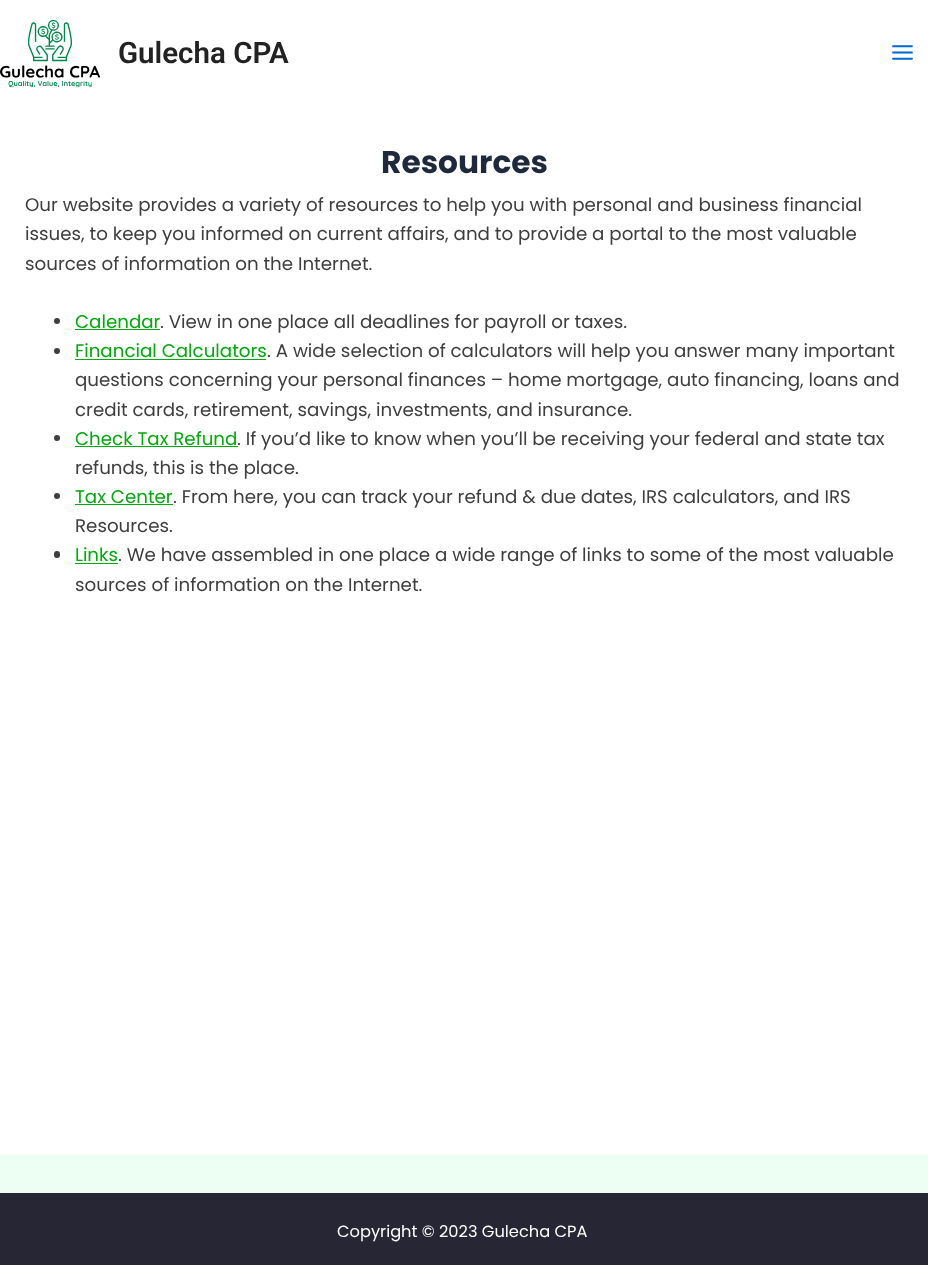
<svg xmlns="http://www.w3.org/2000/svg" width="928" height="1265">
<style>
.a{font:600 29.5px Roboto;fill:#222}
.b{font:bold 31.25px Poppins;fill:#1e293b}
.c{font:18.25px Poppins;fill:#3e3e3e}
.d{font:18.25px Poppins;fill:#04a710}
.e{font:16.25px Poppins;fill:#fff}
</style>
<rect width="100%" height="100%" fill="#fff"/>
<image href="1.png" x="0" y="20" width="100" height="68"/>
<image href="2.png" x="892" y="45" width="21" height="15"/>
<circle fill="#3e3e3e" cx="57" cy="321" r="3"/>
<path fill="#04a710" d="M75 329h85v1H75z"/>
<circle fill="#3e3e3e" cx="57" cy="351" r="3"/>
<path fill="#04a710" d="M75 359h191v1H75z"/>
<circle fill="#3e3e3e" cx="57" cy="438" r="3"/>
<path fill="#04a710" d="M75 446h163v1H75z"/>
<circle fill="#3e3e3e" cx="57" cy="496" r="3"/>
<path fill="#04a710" d="M75 504h98v1H75z"/>
<rect fill="#3e3e3e" x="54" y="551" width="6" height="7" rx="3"/>
<path fill="#04a710" d="M75 563h43v1H75z"/>
<path fill="#ecfff2" d="M0 1155h928v38H0z"/>
<path fill="#262635" d="M0 1193h928v72H0z"/>
<text class="a" x="118" y="63">Gulecha CPA</text>
<text class="b" x="381" y="173">Resources</text>
<text class="c" x="25" y="211">Our website provides a variety of resources to help you with personal and business financial</text>
<text class="c" x="25" y="240">issues, to keep you informed on current affairs, and to provide a portal to the most valuable</text>
<text class="c" x="25" y="270">sources of information on the Internet.</text>
<text class="d" x="75" y="328">Calendar</text>
<text class="c" x="160" y="328">. View in one place all deadlines for payroll or taxes.</text>
<text class="d" x="75" y="357">Financial Calculators</text>
<text class="c" x="267" y="357">. A wide selection of calculators will help you answer many important</text>
<text class="c" x="75" y="386">questions concerning your personal finances – home mortgage, auto financing, loans and</text>
<text class="c" x="75" y="416">credit cards, retirement, savings, investments, and insurance.</text>
<text class="d" x="75" y="445">Check Tax Refund</text>
<text class="c" x="237" y="445">. If you’d like to know when you’ll be receiving your federal and state tax</text>
<text class="c" x="75" y="474">refunds, this is the place.</text>
<text class="d" x="75" y="503">Tax Center</text>
<text class="c" x="173" y="503">. From here, you can track your refund &amp; due dates, IRS calculators, and IRS</text>
<text class="c" x="75" y="532">Resources.</text>
<text class="d" x="75" y="561">Links</text>
<text class="c" x="118" y="561">. We have assembled in one place a wide range of links to some of the most valuable</text>
<text class="c" x="75" y="591">sources of information on the Internet.</text>
<text class="e" x="337" y="1237">Copyright © 2023 Gulecha CPA</text>
</svg>
